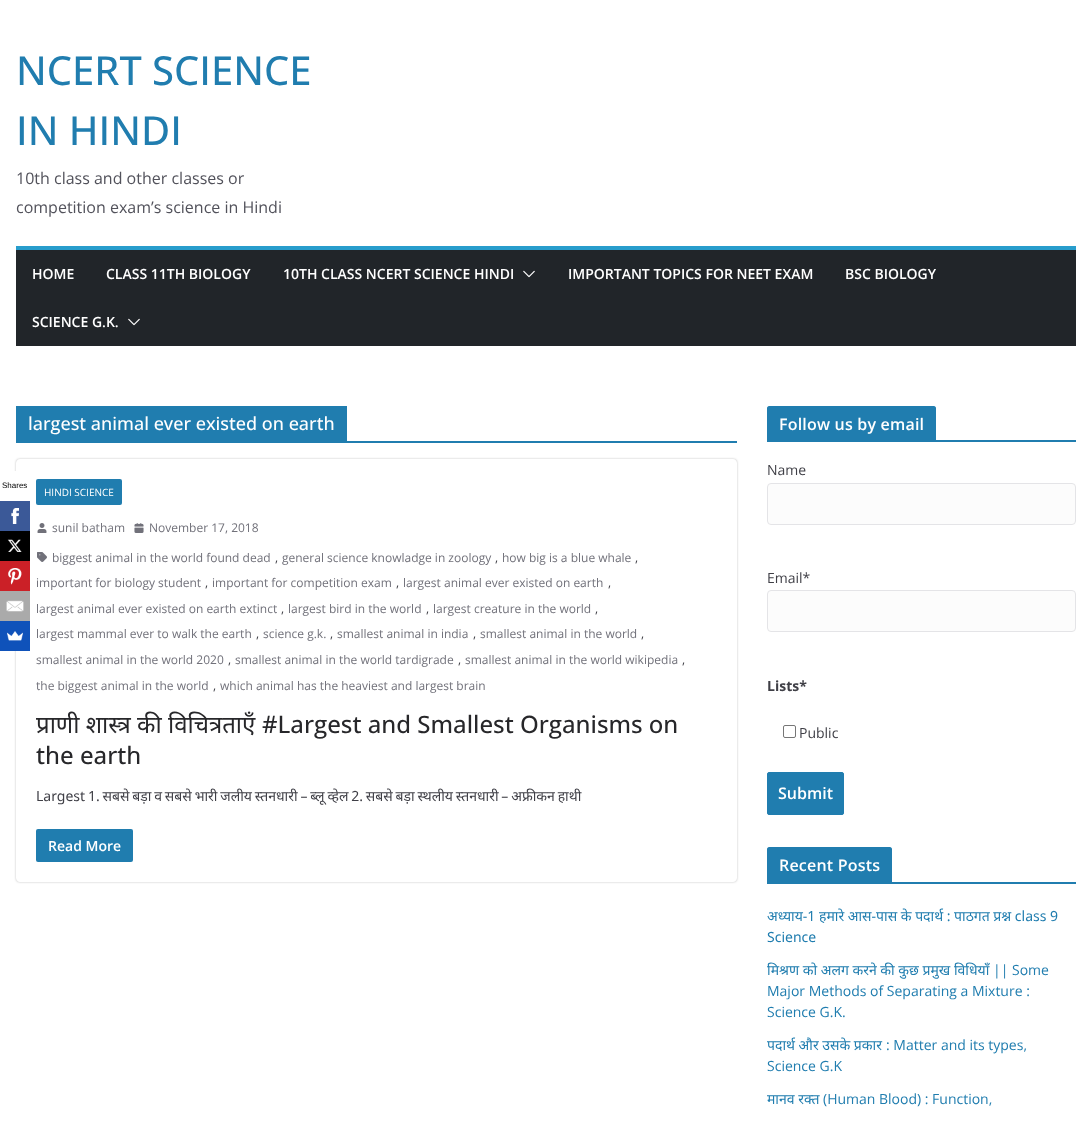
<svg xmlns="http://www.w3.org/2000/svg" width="1092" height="1121">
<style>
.a{font:8px Liberation Sans;fill:#000}
.b{font:500 40px Open Sans;fill:#207daf}
.c{font:16px Open Sans;fill:#52525b}
.d{font:600 14px Open Sans;fill:#fff}
.e{font:500 18px Open Sans;fill:#fff}
.f{font:10px Open Sans;fill:#fff}
.g{font:12px Open Sans;fill:#71717a}
.h{font:12px Open Sans;fill:#3f3f46}
.i{font:24px Noto Sans;fill:#27272a}
.j{font:500 24px Open Sans;fill:#27272a}
.k{font:14px Noto Sans;fill:#3f3f46}
.l{font:600 16px Open Sans;letter-spacing:0.2px;fill:#fff}
.m{font:14px Open Sans;fill:#3f3f46}
.n{font:bold 14px Open Sans;fill:#3f3f46}
.o{font:600 16px Open Sans;fill:#fff}
.p{font:14px Noto Sans;fill:#207daf}
.q{font:14px Open Sans;fill:#207daf}
</style>
<defs>
<clipPath id="clip1"><path d="M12 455h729v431h-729zm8 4h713c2 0 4 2 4 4v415c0 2-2 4-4 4h-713c-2 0-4-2-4-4v-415c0-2 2-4 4-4z" clip-rule="evenodd"/></clipPath>
</defs>
<rect width="100%" height="100%" fill="#fff"/>
<g clip-path="url(#clip1)">
<rect fill="#0000003d" filter="blur(1px)" x="16" y="459" width="721" height="423" rx="4"/>
</g>
<path fill="#fff" d="M14 471h2v30H14z"/>
<path fill="#3b5998" d="M0 501h30v30H0z"/>
<image href="1.png" x="11" y="508" width="8" height="16"/>
<path fill="#000" d="M0 531h30v30H0z"/>
<image href="2.png" x="7" y="539" width="15" height="13"/>
<path fill="#cb2027" d="M0 561h30v30H0z"/>
<image href="3.png" x="8" y="568" width="14" height="17"/>
<path fill="#aaa" d="M0 591h30v30H0z"/>
<image href="4.png" x="6" y="600" width="18" height="12"/>
<path fill="#0f52ba" d="M0 621h30v30H0z"/>
<image href="5.png" x="7" y="631" width="16" height="10"/>
<path fill="#212529" d="M16 250h1060v96H16z"/>
<path fill="#289dcc" d="M16 246h1060v4H16z"/>
<image href="6.png" x="523" y="270" width="12" height="8"/>
<image href="6.png" x="128" y="318" width="12" height="8"/>
<path fill="#207daf" d="M16 441h721v2H16z"/>
<path fill="#207daf" d="M16 406h331v35H16z"/>
<rect fill="#207daf" x="36" y="479" width="86" height="26" rx="2"/>
<image href="7.png" x="37" y="523" width="10" height="10"/>
<image href="8.png" x="134" y="523" width="10" height="10"/>
<image href="9.png" x="37" y="552" width="10" height="10"/>
<rect fill="#207daf" x="36" y="829" width="97" height="33" rx="2"/>
<path fill="#207daf" d="M767 440h309v2H767z"/>
<path fill="#207daf" d="M769 406h165c1 0 2 1 2 2v32h-169v-32c0-1 1-2 2-2z"/>
<rect fill="#fcfcfc" stroke="#e4e4e7" x="767.5" y="483.5" width="308" height="41" rx="3.5"/>
<rect fill="#fcfcfc" stroke="#e4e4e7" x="767.5" y="590.5" width="308" height="41" rx="3.5"/>
<rect fill="none" stroke="#767676" x="783.5" y="725.5" width="12" height="12" rx="1.5"/>
<rect fill="#207daf" stroke="#207daf" x="767.5" y="772.5" width="76" height="42" rx="1.5"/>
<path fill="#207daf" d="M767 882h309v2H767z"/>
<path fill="#207daf" d="M769 847h121c1 0 2 1 2 2v33h-125v-33c0-1 1-2 2-2z"/>
<text class="a" x="2" y="488">Shares</text>
<text class="b" x="16" y="85">NCERT SCIENCE</text>
<text class="b" x="16" y="145">IN HINDI</text>
<text class="c" x="16" y="184">10th class and other classes or</text>
<text class="c" x="16" y="213">competition exam’s science in Hindi</text>
<text class="d" x="32" y="279">HOME</text>
<text class="d" x="106" y="279">CLASS 11TH BIOLOGY</text>
<text class="d" x="283" y="279">10TH CLASS NCERT SCIENCE HINDI</text>
<text class="d" x="568" y="279">IMPORTANT TOPICS FOR NEET EXAM</text>
<text class="d" x="845" y="279">BSC BIOLOGY</text>
<text class="d" x="32" y="327">SCIENCE G.K.</text>
<text class="e" x="28" y="430">largest animal ever existed on earth</text>
<text class="f" x="44" y="496">HINDI SCIENCE</text>
<text class="g" x="52" y="532">sunil batham</text>
<text class="g" x="149" y="532">November 17, 2018</text>
<text class="g" x="52" y="562">biggest animal in the world found dead</text>
<text class="h" x="275" y="562">,</text>
<text class="g" x="282" y="562">general science knowladge in zoology</text>
<text class="h" x="495" y="562">,</text>
<text class="g" x="502" y="562">how big is a blue whale</text>
<text class="h" x="635" y="562">,</text>
<text class="g" x="36" y="587">important for biology student</text>
<text class="h" x="205" y="587">,</text>
<text class="g" x="212" y="587">important for competition exam</text>
<text class="h" x="396" y="587">,</text>
<text class="g" x="403" y="587">largest animal ever existed on earth</text>
<text class="h" x="608" y="587">,</text>
<text class="g" x="36" y="613">largest animal ever existed on earth extinct</text>
<text class="h" x="281" y="613">,</text>
<text class="g" x="288" y="613">largest bird in the world</text>
<text class="h" x="426" y="613">,</text>
<text class="g" x="433" y="613">largest creature in the world</text>
<text class="h" x="595" y="613">,</text>
<text class="g" x="36" y="638">largest mammal ever to walk the earth</text>
<text class="h" x="256" y="638">,</text>
<text class="g" x="263" y="638">science g.k.</text>
<text class="h" x="330" y="638">,</text>
<text class="g" x="337" y="638">smallest animal in india</text>
<text class="h" x="473" y="638">,</text>
<text class="g" x="480" y="638">smallest animal in the world</text>
<text class="h" x="641" y="638">,</text>
<text class="g" x="36" y="664">smallest animal in the world 2020</text>
<text class="h" x="228" y="664">,</text>
<text class="g" x="235" y="664">smallest animal in the world tardigrade</text>
<text class="h" x="458" y="664">,</text>
<text class="g" x="465" y="664">smallest animal in the world wikipedia</text>
<text class="h" x="682" y="664">,</text>
<text class="g" x="36" y="690">the biggest animal in the world</text>
<text class="h" x="213" y="690">,</text>
<text class="g" x="220" y="690">which animal has the heaviest and largest brain</text>
<text class="i" x="36" y="733">प्राणी शास्त्र की विचित्रताएँ</text>
<text class="j" x="262" y="733">#Largest and Smallest Organisms on</text>
<text class="j" x="36" y="764">the earth</text>
<text class="k" x="36" y="801" word-spacing="-0.8">Largest 1. सबसे बड़ा व सबसे भारी जलीय स्तनधारी – ब्लू व्हेल 2. सबसे बड़ा स्थलीय स्तनधारी – अफ्रीकन हाथी</text>
<text class="d" x="48" y="851">Read More</text>
<text class="l" x="779" y="430">Follow us by email</text>
<text class="m" x="767" y="475">Name</text>
<text class="m" x="767" y="583">Email*</text>
<text class="n" x="767" y="691">Lists*</text>
<text class="m" x="799" y="738">Public</text>
<text class="o" x="778" y="799">Submit</text>
<text class="l" x="779" y="871">Recent Posts</text>
<text class="p" x="767" y="921">अध्याय-1 हमारे आस-पास के पदार्थ : पाठगत प्रश्न class 9</text>
<text class="p" x="767" y="942">Science</text>
<text class="p" x="767" y="975">मिश्रण को अलग करने की कुछ प्रमुख विधियाँ</text>
<text class="q" x="993" y="975">|| Some</text>
<text class="q" x="767" y="996">Major Methods of Separating a Mixture :</text>
<text class="q" x="767" y="1017">Science G.K.</text>
<text class="p" x="767" y="1050">पदार्थ और उसके प्रकार</text>
<text class="q" x="886" y="1050">: Matter and its types,</text>
<text class="q" x="767" y="1071">Science G.K</text>
<text class="p" x="767" y="1104">मानव रक्त</text>
<text class="q" x="823" y="1104">(Human Blood) : Function,</text>
</svg>
